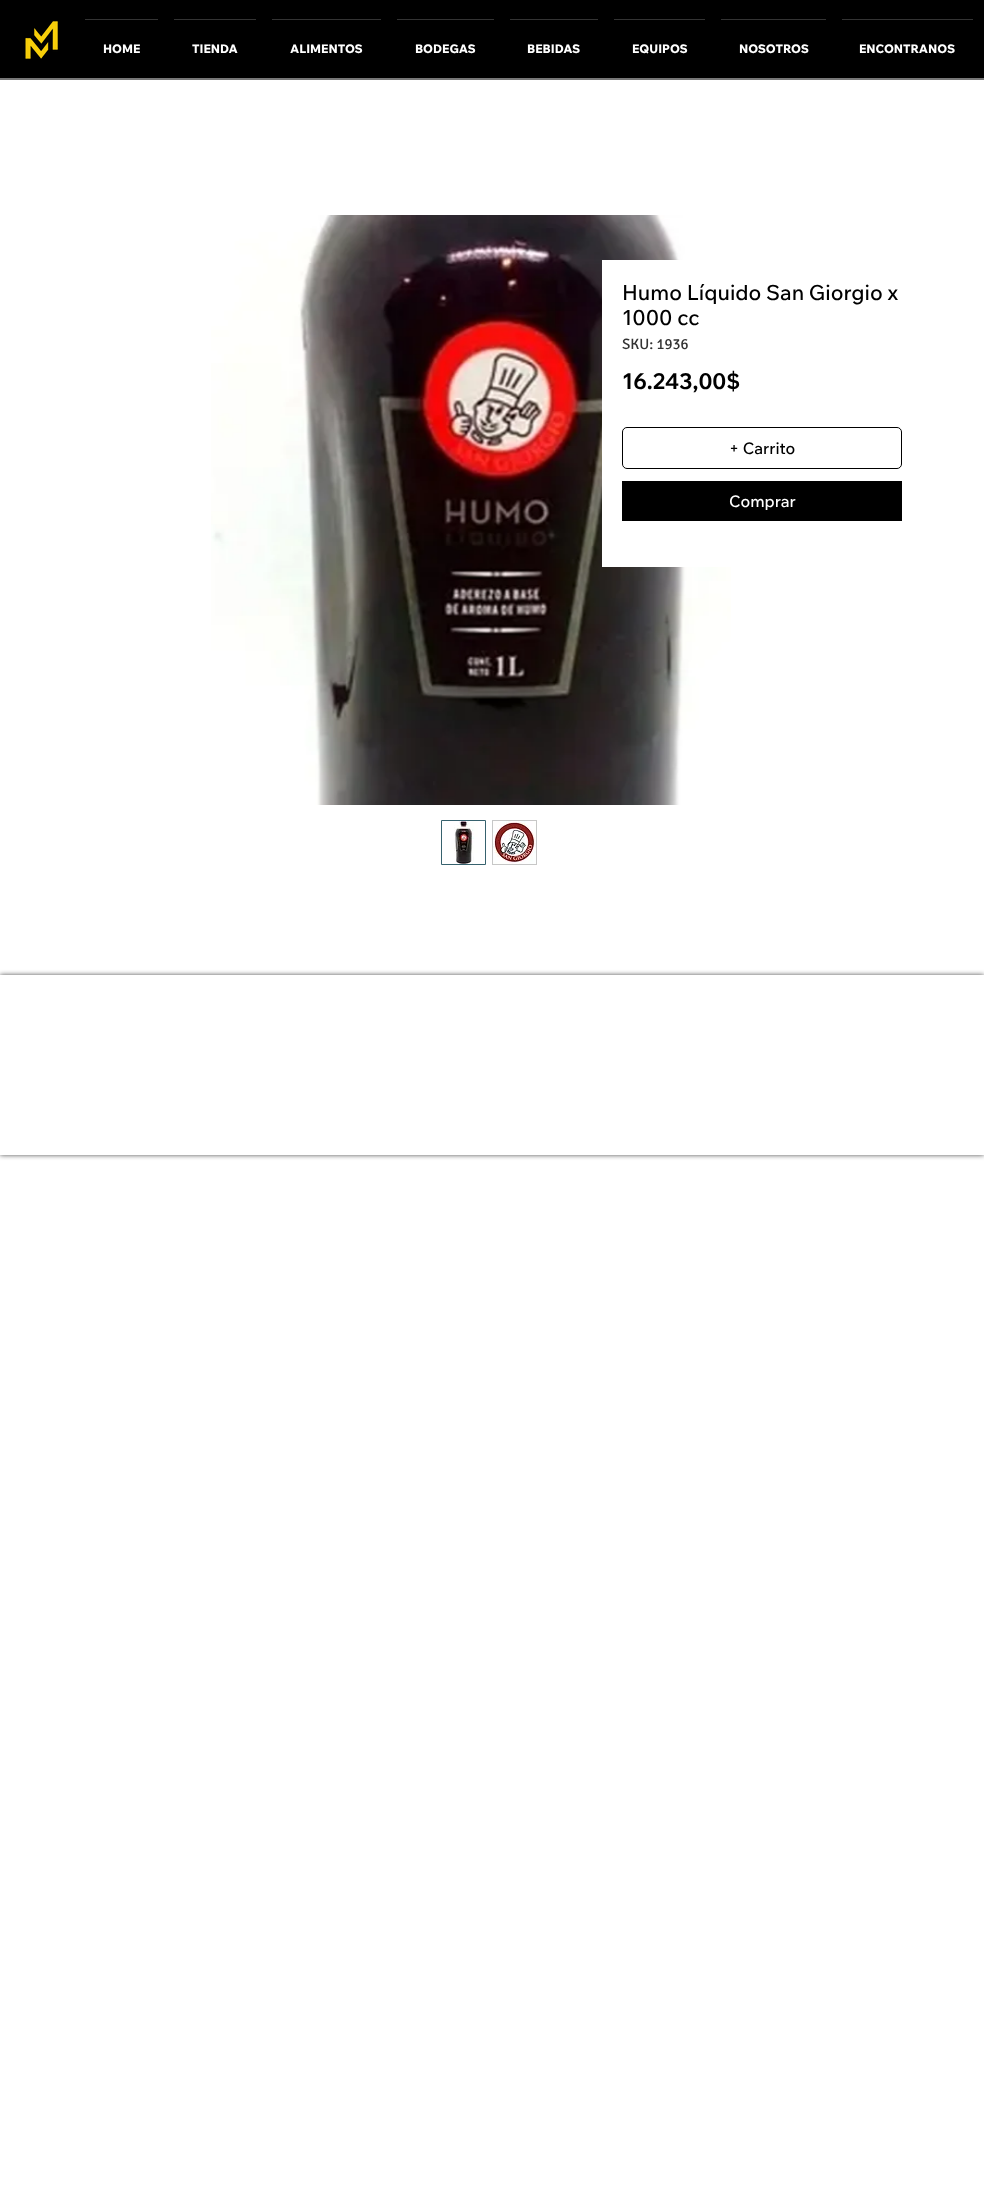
<svg xmlns="http://www.w3.org/2000/svg" width="984" height="2188">
<style>
.a{font:800 12px Wix Madefor Text;fill:#fff}
.b{font:500 21px Wix Madefor Text;fill:#000}
.c{font:15px Signika;fill:#333}
.d{font:bold 22px Wix Madefor Text;fill:#000}
.e{font:500 16px Wix Madefor Text;fill:#000}
.f{font:500 16px Wix Madefor Text;fill:#fff}
</style>
<defs>
<clipPath id="clip1"><path d="M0 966h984v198h-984zm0 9h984v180h-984z" clip-rule="evenodd"/></clipPath>
</defs>
<rect width="100%" height="100%" fill="#fff"/>
<path fill="#000" d="M0 0h984v78H0z"/>
<path fill="#777" d="M0 78h984v2H0z"/>
<image href="1.png" x="25" y="21" width="33" height="38"/>
<path fill="#333" d="M85 19h73v1H85z"/>
<path fill="#333" d="M174 19h82v1H174z"/>
<path fill="#333" d="M272 19h109v1H272z"/>
<path fill="#333" d="M397 19h97v1H397z"/>
<path fill="#333" d="M510 19h88v1H510z"/>
<path fill="#333" d="M614 19h91v1H614z"/>
<path fill="#333" d="M721 19h105v1H721z"/>
<path fill="#333" d="M842 19h131v1H842z"/>
<image href="2.png" x="211" y="215" width="520" height="590"/>
<path fill="none" stroke="#37626e" d="M441.5 820.5h44v44H441.5z"/>
<image href="3.png" x="442" y="821" width="43" height="43"/>
<path fill="#c7c7c7" d="M492 820h45v45H492z"/>
<image href="4.png" x="493" y="821" width="43" height="43"/>
<path fill="#fff" d="M602 260h129v307H602z"/>
<rect fill="none" stroke="#000" x="622.5" y="427.5" width="279" height="41" rx="4.5"/>
<path fill="#000" d="M622 481h280v40H622z"/>
<g clip-path="url(#clip1)">
<path fill="#000000b3" filter="blur(2.5px)" d="M0 975h984v180H0z"/>
</g>
<text class="a" x="103" y="53">HOME</text>
<text class="a" x="192" y="53">TIENDA</text>
<text class="a" x="290" y="53">ALIMENTOS</text>
<text class="a" x="415" y="53">BODEGAS</text>
<text class="a" x="527" y="53">BEBIDAS</text>
<text class="a" x="632" y="53">EQUIPOS</text>
<text class="a" x="739" y="53">NOSOTROS</text>
<text class="a" x="859" y="53">ENCONTRANOS</text>
<text class="b" x="622" y="300">Humo Líquido San Giorgio x</text>
<text class="b" x="622" y="325">1000 cc</text>
<text class="c" x="622" y="349">SKU: 1936</text>
<text class="d" x="622" y="389">16.243,00$</text>
<text class="e" x="729" y="454">+ Carrito</text>
<text class="f" x="729" y="507">Comprar</text>
</svg>
